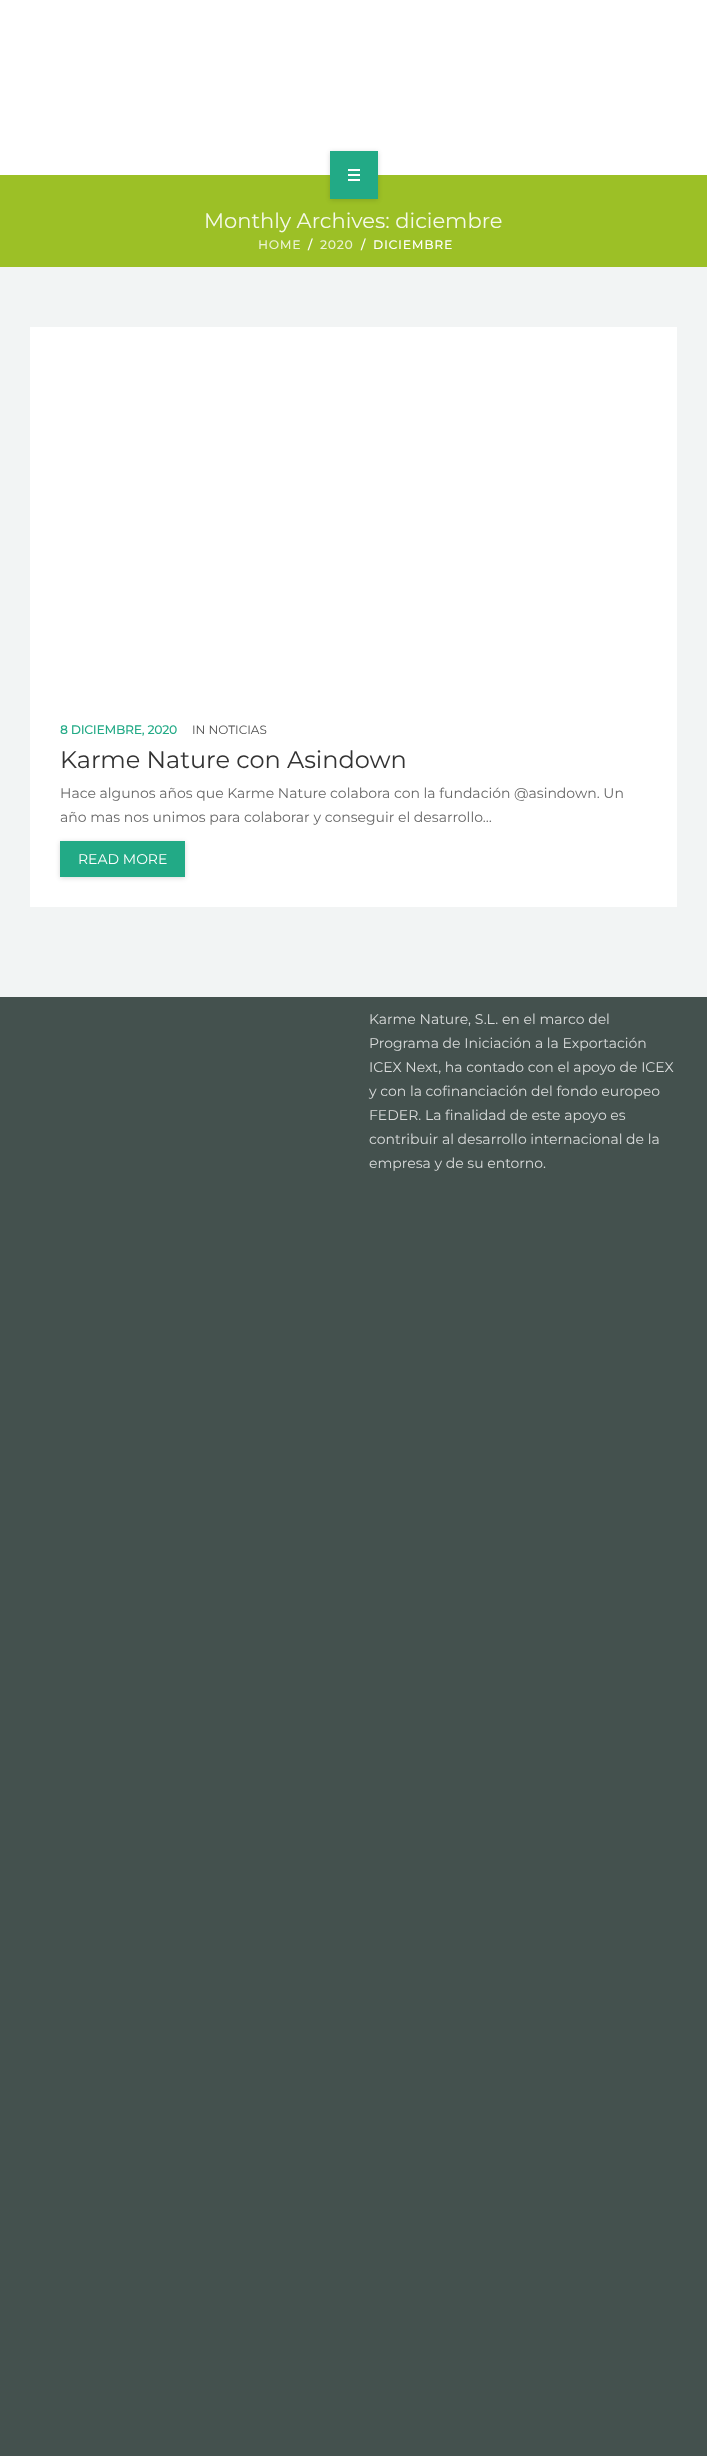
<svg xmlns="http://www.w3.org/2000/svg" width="707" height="2456">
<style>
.a{font:100 21px Montserrat;fill:#f5f9e9}
.b{font:bold 12px Montserrat;letter-spacing:1px;fill:#ebf2d4}
.c{font:bold 12px Montserrat;letter-spacing:1px;fill:#fff}
.d{font:bold 12px Montserrat;fill:#22aa86}
.e{font:100 12px Montserrat;fill:#4d4d4d}
.f{font:100 24px Montserrat;fill:#333}
.g{font:100 14px Montserrat;fill:#666}
.h{font:100 14px Montserrat;fill:#fff}
.i{font:100 14px Montserrat;fill:#dadcdc}
</style>
<rect width="100%" height="100%" fill="#fff"/>
<path fill="#9cc026" d="M0 175h707v92H0z"/>
<path fill="#00000026" filter="blur(2.5px)" d="M330 152h48v48H330z"/>
<path fill="#22aa86" d="M330 151h48v48H330z"/>
<path fill="#fff" d="M348 169h12v2H348z"/>
<path fill="#fff" d="M348 174h12v2H348z"/>
<path fill="#fff" d="M348 179h12v2H348z"/>
<path fill="#f2f4f4" d="M0 267h707v730H0z"/>
<path fill="#fff" d="M30 327h647v580H30z"/>
<path fill="#00000026" filter="blur(2.5px)" d="M60 842h125v36H60z"/>
<path fill="#22aa86" d="M60 841h125v36H60z"/>
<path fill="#44514e" d="M0 997h707v1459H0z"/>
<text class="a" x="204" y="228">Monthly Archives: diciembre</text>
<text class="b" x="258" y="249">HOME</text>
<text class="c" x="308" y="249">/</text>
<text class="b" x="320" y="249">2020</text>
<text class="c" x="361" y="249">/</text>
<text class="c" x="373" y="249">DICIEMBRE</text>
<text class="d" x="60" y="734">8 DICIEMBRE, 2020</text>
<text class="e" x="192" y="734">IN NOTICIAS</text>
<text class="f" x="60" y="768">Karme Nature con Asindown</text>
<text class="g" x="60" y="798">Hace algunos años que Karme Nature colabora con la fundación @asindown. Un</text>
<text class="g" x="60" y="822">año mas nos unimos para colaborar y conseguir el desarrollo…</text>
<text class="h" x="78" y="864">READ MORE</text>
<text class="i" x="369" y="1024">Karme Nature, S.L. en el marco del</text>
<text class="i" x="369" y="1048">Programa de Iniciación a la Exportación</text>
<text class="i" x="369" y="1072">ICEX Next, ha contado con el apoyo de ICEX</text>
<text class="i" x="369" y="1096">y con la cofinanciación del fondo europeo</text>
<text class="i" x="369" y="1120">FEDER. La finalidad de este apoyo es</text>
<text class="i" x="369" y="1144">contribuir al desarrollo internacional de la</text>
<text class="i" x="369" y="1168">empresa y de su entorno.</text>
</svg>
